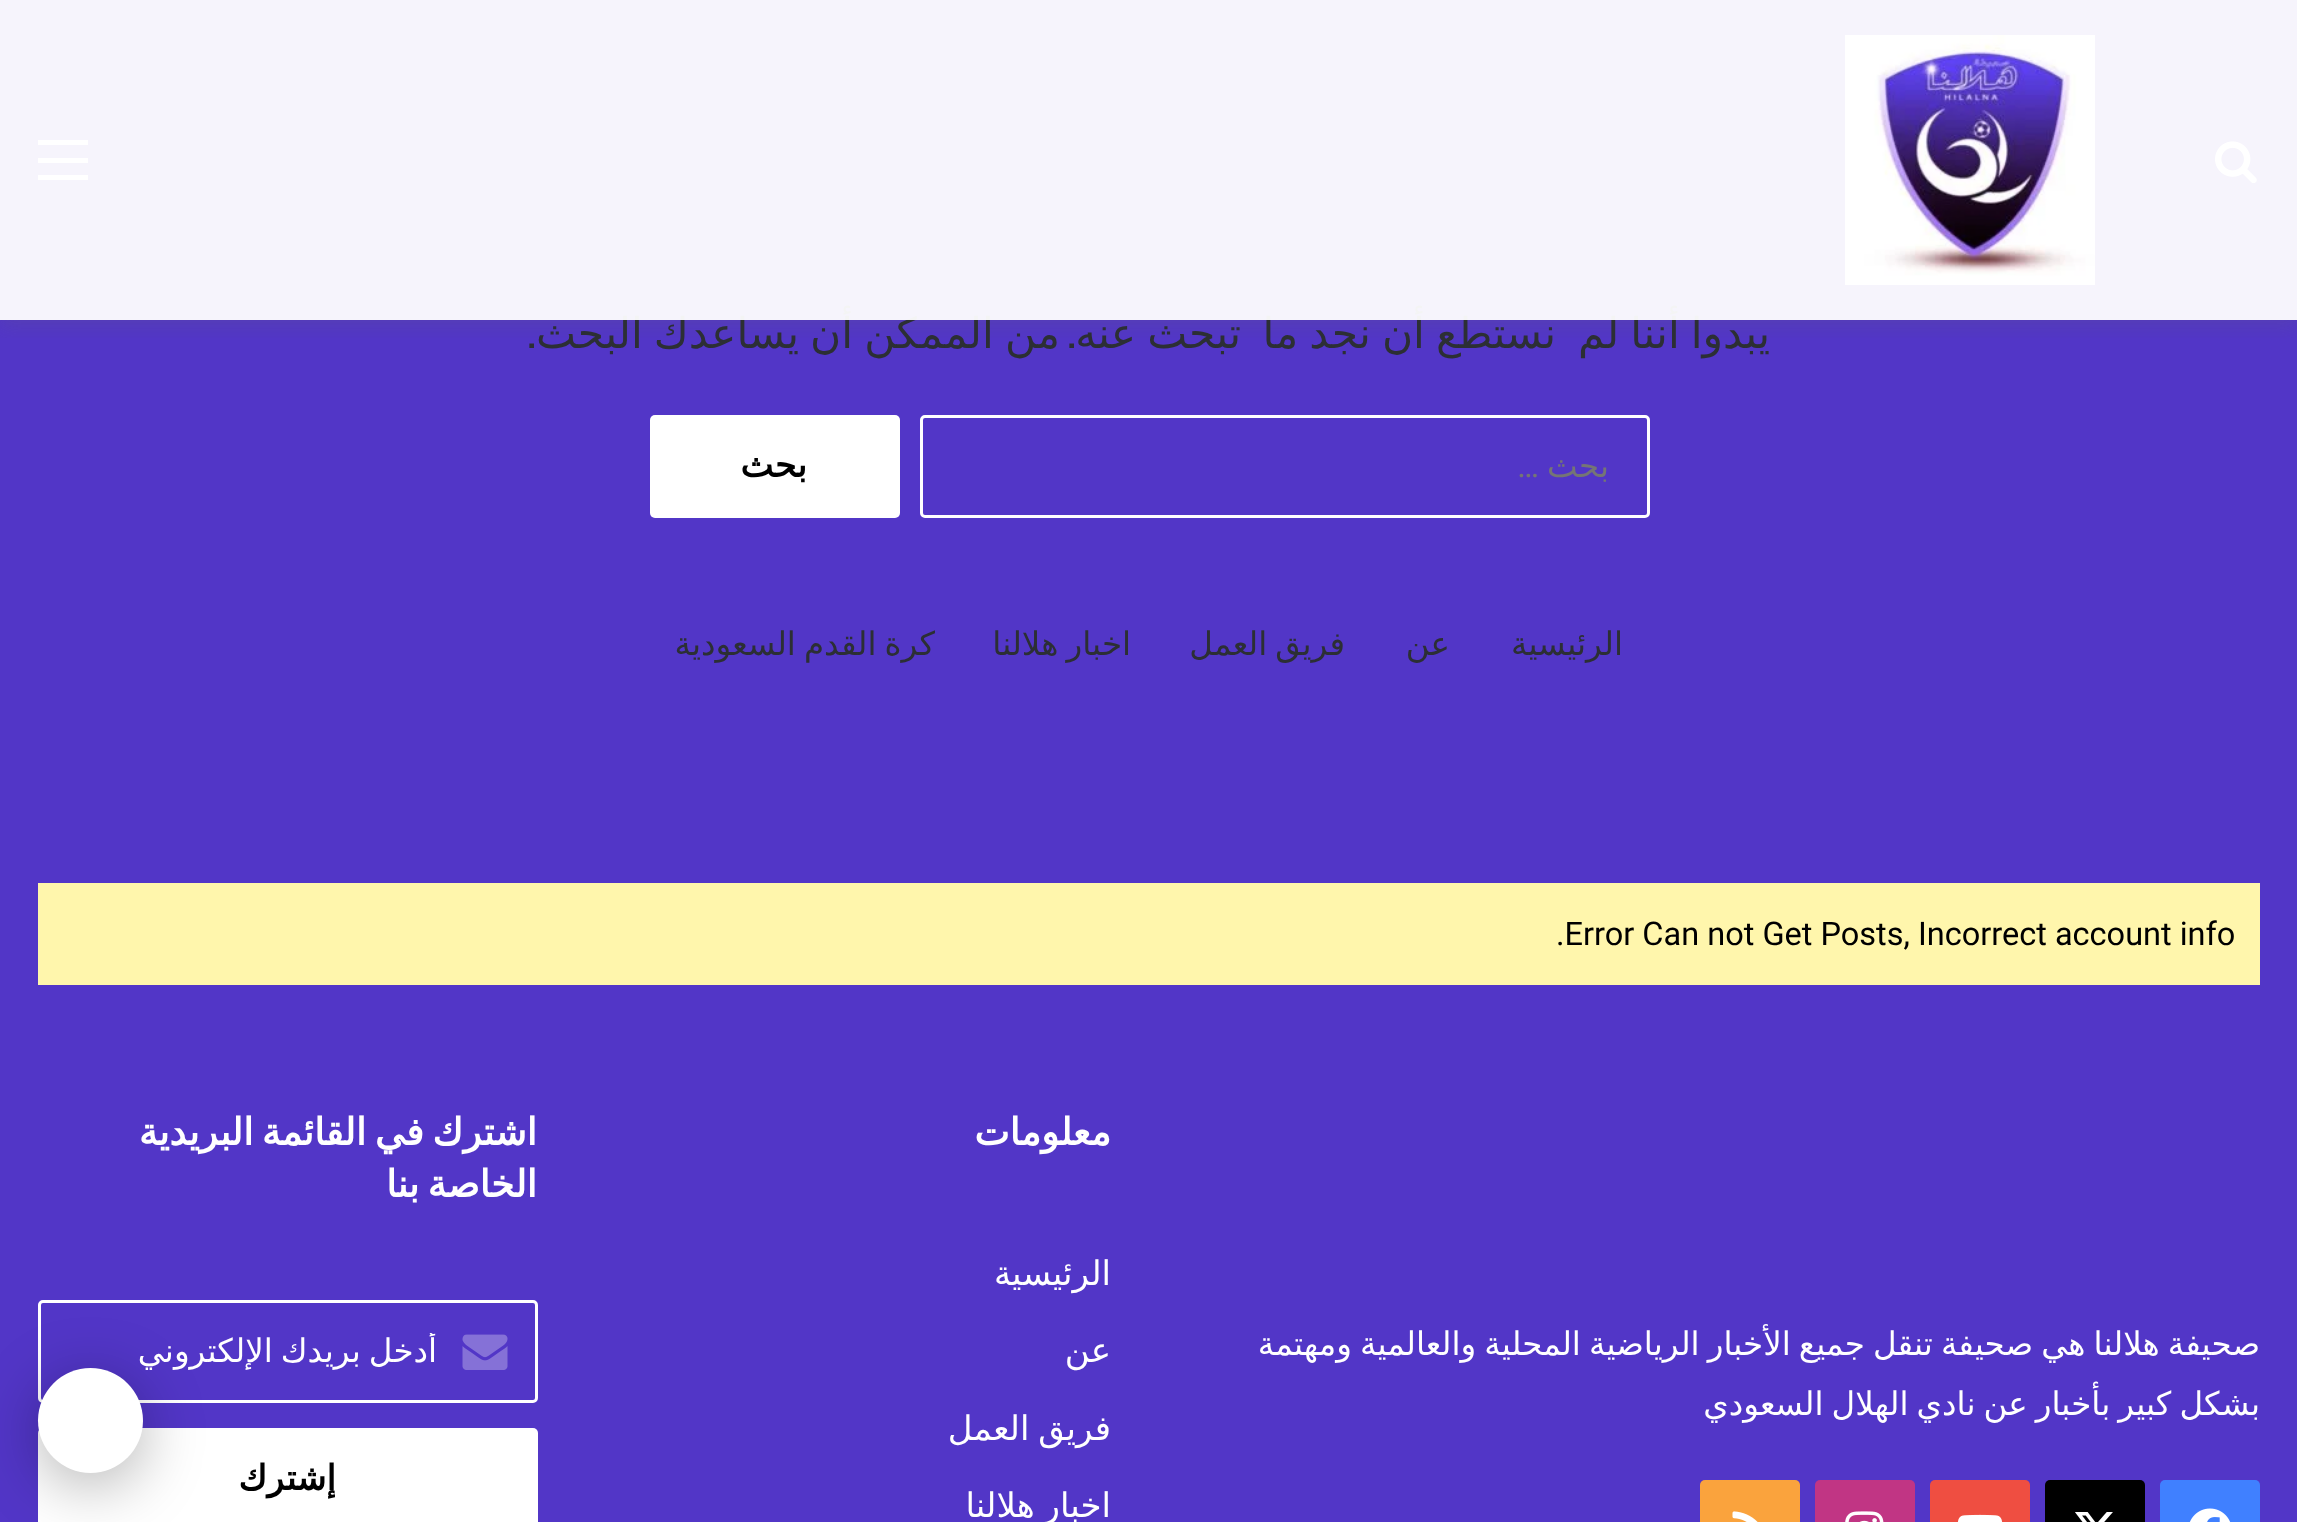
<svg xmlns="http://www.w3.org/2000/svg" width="2297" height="1522">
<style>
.a{font:42.5px DejaVu Sans;direction:rtl;fill:#2c2f34}
.b{font:42.5px Cabin;direction:rtl;fill:#2c2f34}
.c{font:32.5px DejaVu Sans;direction:rtl;fill:#757575}
.d{font:32.5px Roboto;direction:rtl;fill:#757575}
.e{font:bold 35px DejaVu Sans;direction:rtl;fill:#000}
.f{font:32.5px DejaVu Sans;direction:rtl;fill:#2c2f34}
.g{font:32.5px Roboto;fill:#000}
.h{font:32.5px DejaVu Sans;direction:rtl;fill:#fff}
.i{font:bold 37.5px DejaVu Sans;direction:rtl;fill:#fff}
.j{font:34px DejaVu Sans;direction:rtl;fill:#fff}
</style>
<defs>
<clipPath id="clip1"><path d="M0 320h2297v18H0z"/></clipPath>
<clipPath id="clip2"><path d="M115 1333h345v37H115z"/></clipPath>
</defs>
<rect width="100%" height="100%" fill="#5236c7"/>
<g clip-path="url(#clip1)">
<path fill="#63636333" filter="blur(10px)" d="M0 5h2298v320H0z"/>
</g>
<rect fill="none" stroke="#fff" stroke-width="3" x="921.5" y="416.5" width="727" height="100" rx="3.5"/>
<rect fill="#fff" x="650" y="415" width="250" height="103" rx="5"/>
<path fill="#fff6ac" d="M38 883h2222v102H38z"/>
<rect fill="#4080ff" x="2160" y="1480" width="100" height="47" rx="5"/>
<image href="3.png" x="2189" y="1508" width="42" height="14"/>
<rect fill="#000" x="2045" y="1480" width="100" height="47" rx="5"/>
<image href="4.png" x="2075" y="1512" width="38" height="10"/>
<rect fill="#ef4e41" x="1930" y="1480" width="100" height="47" rx="5"/>
<image href="5.png" x="1957" y="1514" width="46" height="8"/>
<rect fill="#c13584" x="1815" y="1480" width="100" height="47" rx="5"/>
<image href="6.png" x="1845" y="1511" width="39" height="11"/>
<rect fill="#faa33d" x="1700" y="1480" width="100" height="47" rx="5"/>
<image href="7.png" x="1732" y="1511" width="26" height="11"/>
<rect fill="none" stroke="#fff" stroke-width="3" x="39.5" y="1301.5" width="497" height="100" rx="3.5"/>
<image href="8.png" x="462" y="1334" width="46" height="36"/>
<rect fill="#fff" x="38" y="1428" width="500" height="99" rx="5"/>
<rect fill="#0000004d" filter="blur(31px)" x="38" y="1380" width="105" height="105" rx="52.5"/>
<circle fill="#fff" cx="90.5" cy="1420.5" r="52.5"/>
<text class="a" x="1770" y="348" word-spacing="-2.5">يبدوا أننا لم</text>
<text class="a" x="1556" y="348" word-spacing="-2.5">نستطع أن نجد ما</text>
<text class="a" x="1241" y="348" word-spacing="-2.5">تبحث عنه</text>
<text class="b" x="1076" y="348">.</text>
<text class="a" x="1060" y="348" word-spacing="-2.5">من الممكن أن يساعدك البحث</text>
<path fill="#fffffff2" d="M0 0h2297v320H0z"/>
<image href="1.png" x="2215" y="141" width="42" height="42"/>
<path fill="#fff" d="M38 175h50v5H38z"/>
<path fill="#fff" d="M38 140h50v5H38z"/>
<path fill="#fff" d="M38 158h50v5H38z"/>
<image href="2.png" x="1845" y="35" width="250" height="250"/>
<text class="b" x="536" y="348">.</text>
<text class="c" x="1609" y="477">بحث</text>
<text class="d" x="1539" y="477">…</text>
<text class="e" x="807" y="477">بحث</text>
<text class="f" x="1623" y="655">الرئيسية</text>
<text class="f" x="1450" y="655">عن</text>
<text class="f" x="1345" y="655" word-spacing="-2.25">فريق العمل</text>
<text class="f" x="1131" y="655" word-spacing="-2.25">اخبار هلالنا</text>
<text class="f" x="935" y="655" word-spacing="-2.25">كرة القدم السعودية</text>
<text class="g" x="1556" y="945">.Error Can not Get Posts, Incorrect account info</text>
<text class="h" x="2260" y="1355" word-spacing="-2.25">صحيفة هلالنا هي صحيفة تنقل جميع الأخبار الرياضية المحلية والعالمية ومهتمة</text>
<text class="h" x="2260" y="1415" word-spacing="-2.25">بشكل كبير بأخبار عن نادي الهلال السعودي</text>
<text class="i" x="1111" y="1145">معلومات</text>
<text class="j" x="1111" y="1285">الرئيسية</text>
<text class="j" x="1111" y="1362">عن</text>
<text class="j" x="1111" y="1440" word-spacing="-2">فريق العمل</text>
<text class="j" x="1111" y="1517" word-spacing="-2">اخبار هلالنا</text>
<text class="i" x="537" y="1145" word-spacing="-3.5">اشترك في القائمة البريدية</text>
<text class="i" x="537" y="1197" word-spacing="-3.5">الخاصة بنا</text>
<g clip-path="url(#clip2)">
<text class="h" x="437" y="1362" word-spacing="-2.25">أدخل بريدك الإلكتروني</text>
</g>
<text class="e" x="336" y="1490">إشترك</text>
</svg>
